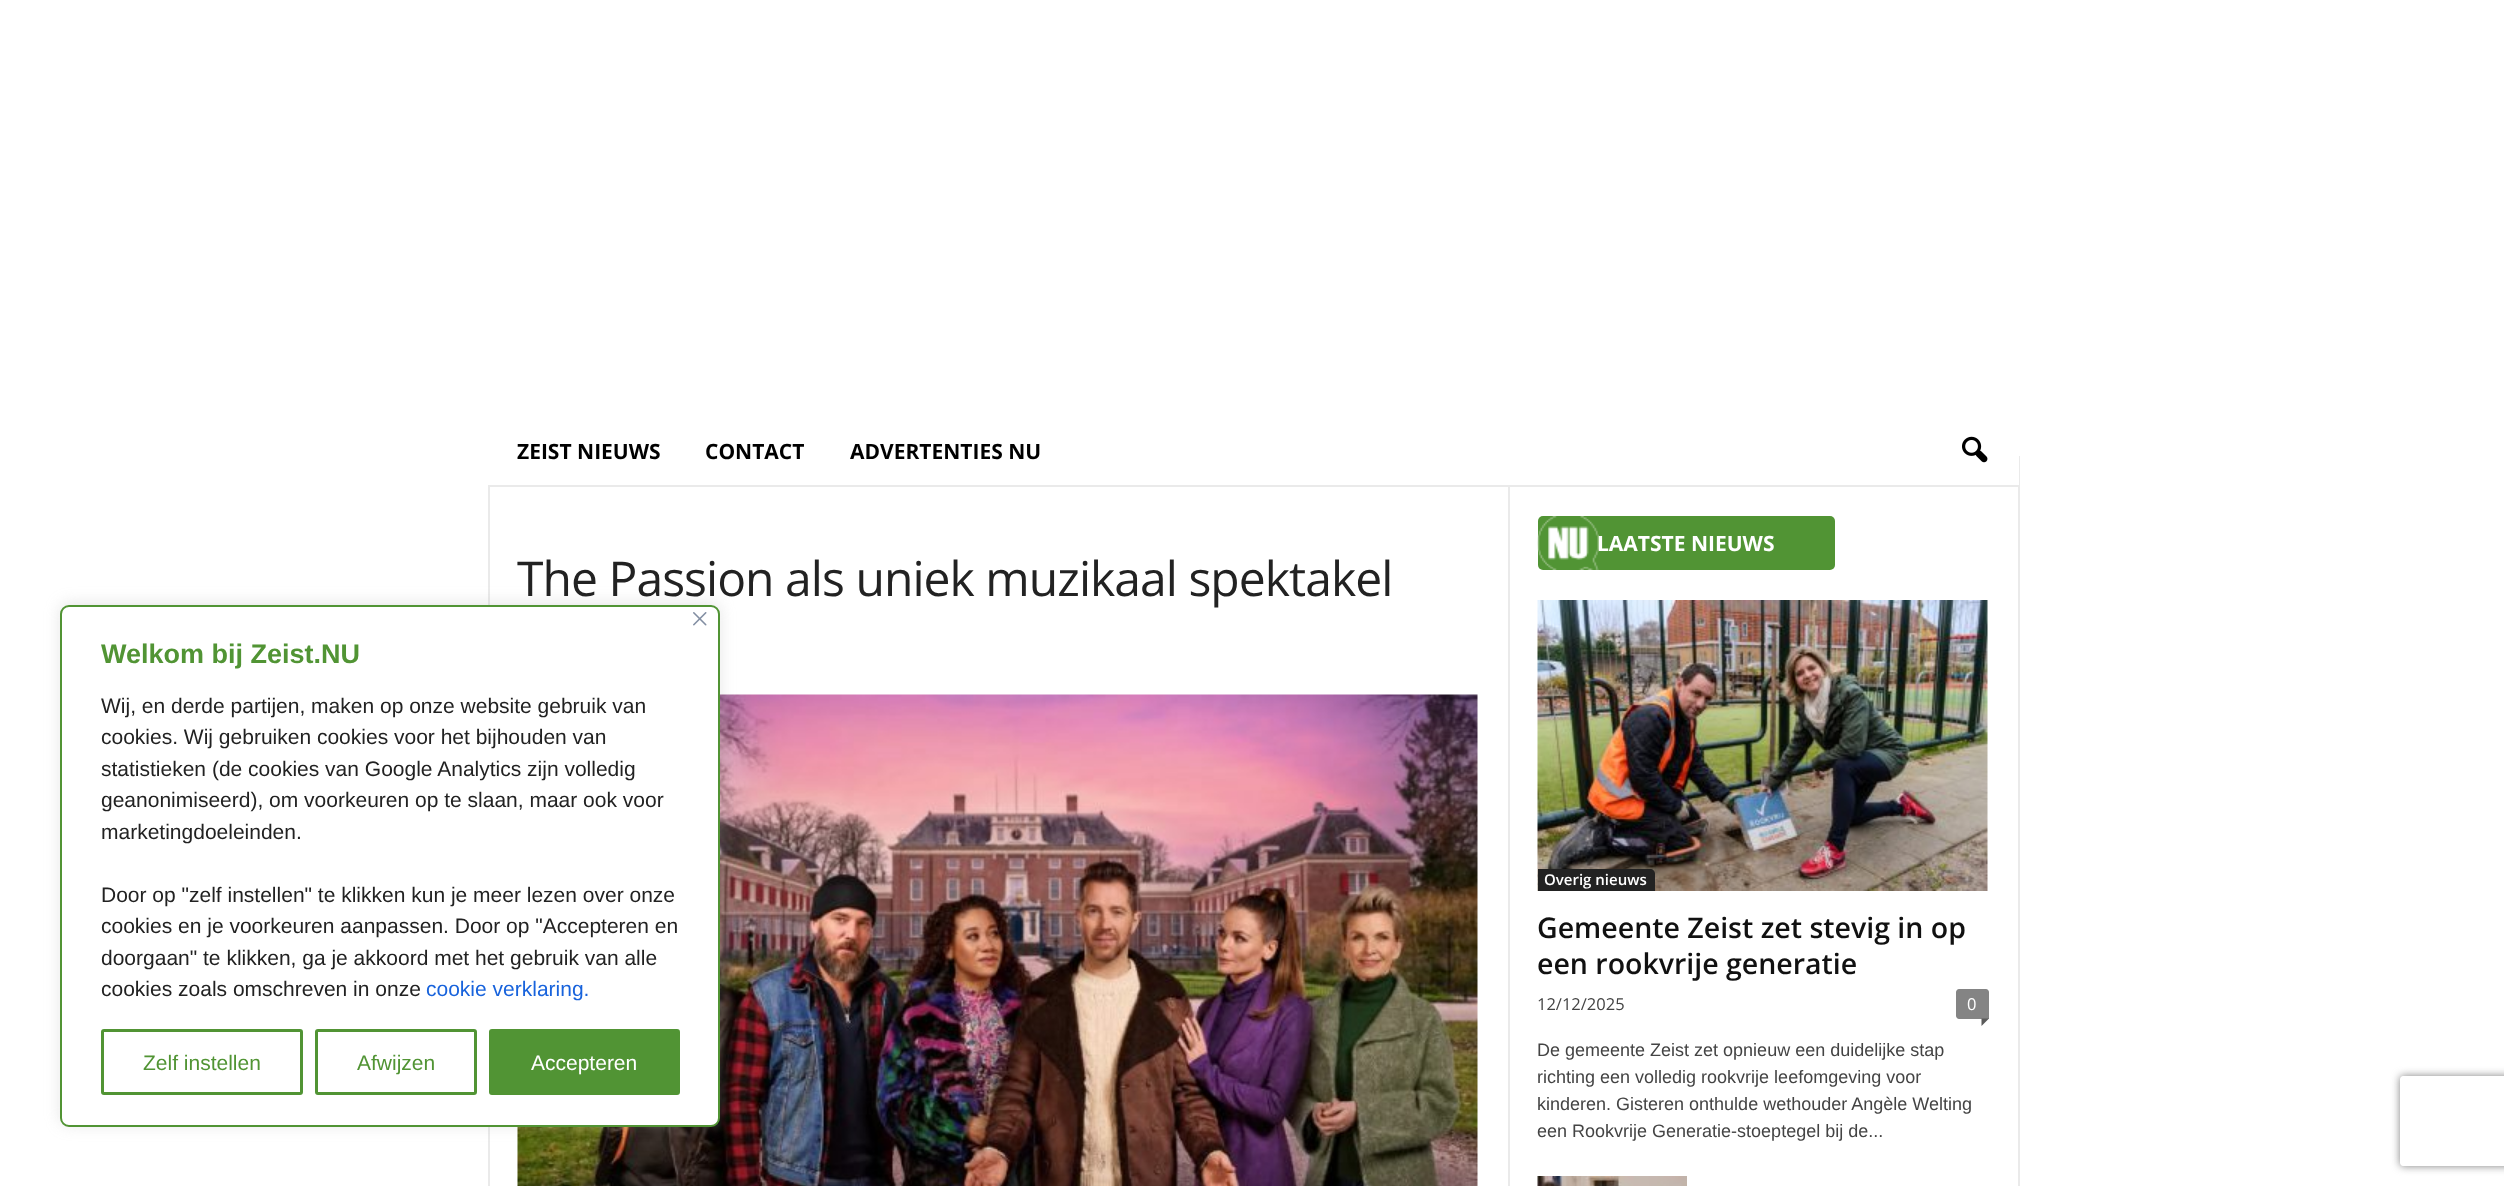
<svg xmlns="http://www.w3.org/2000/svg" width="2504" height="1186">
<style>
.a{font:bold 21px Open Sans;fill:#000}
.b{font:48px Open Sans;letter-spacing:-0.95px;fill:#222}
.c{font:21px Liberation Sans;fill:#fff}
.d{font:21px Liberation Sans;fill:#519434}
.e{font:21px Liberation Sans;fill:#1863dc}
.f{font:21px Liberation Sans;fill:#222}
.g{font:bold 27px Liberation Sans;fill:#519434}
.h{font:bold 21px Open Sans;fill:#fff}
.i{font:600 15px Open Sans;fill:#fff}
.j{font:600 28.5px Open Sans;fill:#111}
.k{font:16.5px Open Sans;fill:#444}
.l{font:16.5px Open Sans;fill:#fff}
.m{font:18px Liberation Sans;fill:#444}
</style>
<defs>
<clipPath id="clip1"><path d="M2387 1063h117v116h-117zm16 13h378c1.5 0 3 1.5 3 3v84c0 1.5-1.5 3-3 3h-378c-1.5 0-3-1.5-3-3v-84c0-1.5 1.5-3 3-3z" clip-rule="evenodd"/></clipPath>
</defs>
<rect width="100%" height="100%" fill="#fff"/>
<path fill="#eaeaea" d="M488 486h2v700H488z"/>
<image href="3.png" x="517" y="694" width="961" height="492"/>
<rect fill="#acabab4d" filter="blur(7.5px)" x="60" y="603" width="660" height="522" rx="9"/>
<path fill="#eaeaea" d="M2018 456h2v730H2018z"/>
<path fill="#fff" d="M2018 456h1v29H2018z"/>
<path fill="#eaeaea" d="M488 485h1531v2H488z"/>
<image href="2.png" x="1962" y="436" width="26" height="27"/>
<path fill="#eaeaea" d="M1508 487h2v699H1508z"/>
<rect fill="#519434" x="1538" y="516" width="297" height="54" rx="5"/>
<image href="4.png" x="1537" y="516" width="62" height="54"/>
<image href="5.png" x="1537" y="600" width="451" height="291"/>
<path fill="#222" d="M1538 869h112c3 0 5 2 5 5v17h-117z"/>
<path fill="#848484" d="M1959 989h27c1.5 0 3 1.5 3 3v27h-30c-1.5 0-3-1.5-3-3v-24c0-1.5 1.5-3 3-3z"/>
<path fill="#5b5b5b" d="M1981.5 1018.5h7.5l-7.5 7.5z"/>
<image href="6.png" x="1537" y="1176" width="150" height="10"/>
<g clip-path="url(#clip1)">
<rect fill="#808080" filter="blur(4px)" x="2400" y="1076" width="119" height="90" rx="3"/>
</g>
<text class="a" x="517" y="459">ZEIST NIEUWS</text>
<text class="a" x="705" y="459">CONTACT</text>
<text class="a" x="850" y="459">ADVERTENTIES NU</text>
<text class="b" x="517" y="596">The Passion als uniek muzikaal spektakel</text>
<rect fill="#fff" stroke="#519434" stroke-width="2" x="61" y="606" width="658" height="520" rx="8"/>
<image href="1.png" x="693" y="612" width="14" height="14"/>
<rect fill="#519434" stroke="#519434" stroke-width="3" x="490.5" y="1030.5" width="188" height="63" rx="1.5"/>
<text class="c" x="531" y="1070">Accepteren</text>
<rect fill="none" stroke="#519434" stroke-width="3" x="316.5" y="1030.5" width="159" height="63" rx="1.5"/>
<text class="d" x="357" y="1070">Afwijzen</text>
<rect fill="none" stroke="#519434" stroke-width="3" x="102.5" y="1030.5" width="199" height="63" rx="1.5"/>
<text class="d" x="143" y="1070">Zelf instellen</text>
<text class="e" x="426" y="996">cookie verklaring.</text>
<text class="f" x="101" y="996">cookies zoals omschreven in onze</text>
<text class="f" x="101" y="965">doorgaan" te klikken, ga je akkoord met het gebruik van alle</text>
<text class="f" x="101" y="933">cookies en je voorkeuren aanpassen. Door op "Accepteren en</text>
<text class="f" x="101" y="902">Door op "zelf instellen" te klikken kun je meer lezen over onze</text>
<text class="f" x="101" y="839">marketingdoeleinden.</text>
<text class="f" x="101" y="807">geanonimiseerd), om voorkeuren op te slaan, maar ook voor</text>
<text class="f" x="101" y="776">statistieken (de cookies van Google Analytics zijn volledig</text>
<text class="f" x="101" y="744">cookies. Wij gebruiken cookies voor het bijhouden van</text>
<text class="f" x="101" y="713">Wij, en derde partijen, maken op onze website gebruik van</text>
<text class="g" x="101" y="663">Welkom bij Zeist.NU</text>
<text class="h" x="1597" y="551">LAATSTE NIEUWS</text>
<text class="i" x="1544" y="885">Overig nieuws</text>
<text class="j" x="1537" y="938">Gemeente Zeist zet stevig in op</text>
<text class="j" x="1537" y="974">een rookvrije generatie</text>
<text class="k" x="1537" y="1010">12/12/2025</text>
<text class="l" x="1967" y="1010">0</text>
<text class="m" x="1537" y="1056">De gemeente Zeist zet opnieuw een duidelijke stap</text>
<text class="m" x="1537" y="1083">richting een volledig rookvrije leefomgeving voor</text>
<text class="m" x="1537" y="1110">kinderen. Gisteren onthulde wethouder Angèle Welting</text>
<text class="m" x="1537" y="1137">een Rookvrije Generatie-stoeptegel bij de...</text>
</svg>
